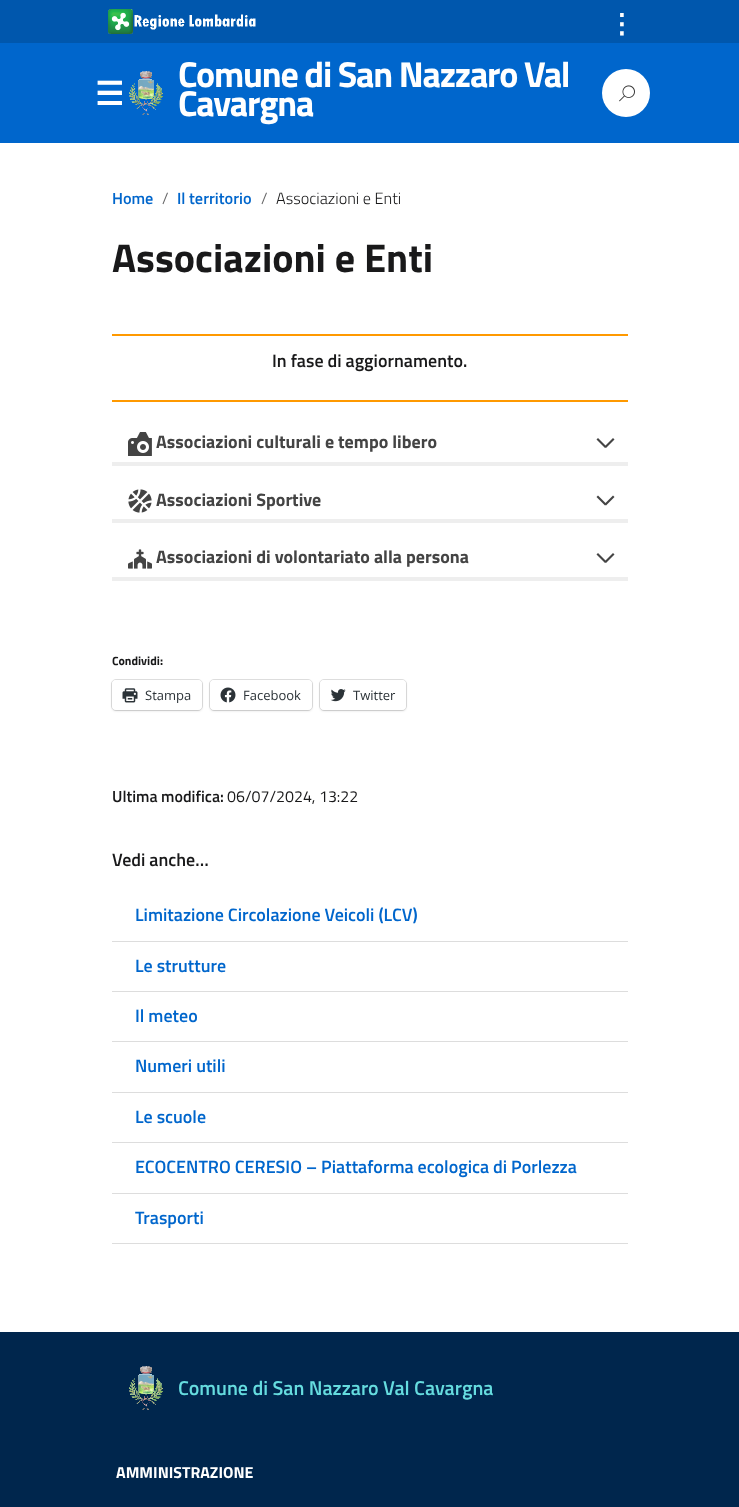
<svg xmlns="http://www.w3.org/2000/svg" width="739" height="1507">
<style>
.a{font:bold 27px DejaVu Sans;fill:#fff}
.b{font:bold 32px DejaVu Sans;fill:#fff}
.c{font:bold 36px Titillium Web;letter-spacing:-1.2px;fill:#fff}
.d{font:600 16.25px Titillium Web;fill:#06c}
.e{font:300 16.25px Titillium Web;fill:#656566}
.f{font:300 16.25px Titillium Web;fill:#19191a}
.g{font:bold 40px Titillium Web;fill:#19191a}
.h{font:600 18px Titillium Web;fill:#19191a}
.i{font:bold 18px Titillium Web;fill:#444}
.j{font:bold 12px Titillium Web;fill:#19191a}
.k{font:13px Open Sans;fill:#2c3338}
.l{font:600 16px Titillium Web;fill:#19191a}
.m{font:16px Titillium Web;fill:#19191a}
.n{font:600 18px Titillium Web;fill:#06c}
.o{font:600 20px Titillium Web;fill:#65dcdf}
.p{font:bold 16px Titillium Web;fill:#fff}
</style>
<rect width="100%" height="100%" fill="#fff"/>
<path fill="#06c" d="M0 43h739v100H0z"/>
<path fill="#0057ad" d="M0 0h739v43H0z"/>
<image href="1.png" x="108" y="9" width="148" height="25"/>
<image href="2.png" x="129" y="71" width="34" height="44"/>
<circle fill="#fff" cx="626" cy="93" r="24"/>
<image href="3.png" x="619" y="85" width="16" height="17"/>
<path fill="#f90" d="M112 334h516v2H112z"/>
<path fill="#f90" d="M112 400h516v2H112z"/>
<path fill="#eee" d="M112 462h516v4H112z"/>
<image href="4.png" x="128" y="432" width="24" height="24"/>
<path fill="#444" d="M598 438l8.5 8.5l-1.5 1.5l-8.5-8.5z"/>
<path fill="#444" d="M604.5 446.5l8.5-8.5l1.5 1.5l-8.5 8.5z"/>
<path fill="#eee" d="M112 519h516v4H112z"/>
<image href="5.png" x="128" y="489" width="24" height="24"/>
<path fill="#444" d="M598 495.5l8.5 8.5l-1.5 1.5l-8.5-8.5z"/>
<path fill="#444" d="M604.5 504l8.5-8.5l1.5 1.5l-8.5 8.5z"/>
<path fill="#eee" d="M112 577h516v4H112z"/>
<image href="6.png" x="128" y="549" width="24" height="20"/>
<path fill="#444" d="M598 553l8.5 8.5l-1.5 1.5l-8.5-8.5z"/>
<path fill="#444" d="M604.5 561.5l8.5-8.5l1.5 1.5l-8.5 8.5z"/>
<rect fill="none" stroke="#e0e0e0" x="111.5" y="679.5" width="91" height="31" rx="4.5"/>
<rect fill="#0000001f" filter="blur(1px)" x="112" y="681" width="90" height="30" rx="4"/>
<rect fill="#fff" x="112" y="680" width="90" height="30" rx="4"/>
<image href="7.png" x="122" y="688" width="16" height="15"/>
<rect fill="none" stroke="#e0e0e0" x="209.5" y="679.5" width="103" height="31" rx="4.5"/>
<rect fill="#0000001f" filter="blur(1px)" x="210" y="681" width="102" height="30" rx="4"/>
<rect fill="#fff" x="210" y="680" width="102" height="30" rx="4"/>
<image href="8.png" x="220" y="687" width="16" height="16"/>
<rect fill="none" stroke="#e0e0e0" x="319.5" y="679.5" width="87" height="31" rx="4.5"/>
<rect fill="#0000001f" filter="blur(1px)" x="320" y="681" width="86" height="30" rx="4"/>
<rect fill="#fff" x="320" y="680" width="86" height="30" rx="4"/>
<image href="9.png" x="330" y="689" width="16" height="13"/>
<path fill="#ddd" d="M112 941h516v1H112z"/>
<path fill="#ddd" d="M112 991h516v1H112z"/>
<path fill="#ddd" d="M112 1041h516v1H112z"/>
<path fill="#ddd" d="M112 1092h516v1H112z"/>
<path fill="#ddd" d="M112 1142h516v1H112z"/>
<path fill="#ddd" d="M112 1193h516v1H112z"/>
<path fill="#ddd" d="M112 1243h516v1H112z"/>
<path fill="#00264d" d="M0 1332h739v175H0z"/>
<image href="10.png" x="129" y="1366" width="34" height="44"/>
<text class="a" x="608" y="33">⋮</text>
<text class="b" x="95" y="105">☰</text>
<text class="c" x="178" y="87">Comune di San Nazzaro Val</text>
<text class="c" x="178" y="116">Cavargna</text>
<text class="d" x="112" y="204">Home</text>
<text class="e" x="162" y="204">/</text>
<text class="d" x="177" y="204">Il territorio</text>
<text class="e" x="261" y="204">/</text>
<text class="f" x="276" y="204">Associazioni e Enti</text>
<text class="g" x="112" y="272">Associazioni e Enti</text>
<text class="h" x="272" y="367">In fase di aggiornamento.</text>
<text class="i" x="156" y="448">Associazioni culturali e tempo libero</text>
<text class="i" x="156" y="506">Associazioni Sportive</text>
<text class="i" x="156" y="563">Associazioni di volontariato alla persona</text>
<text class="j" x="112" y="665">Condividi:</text>
<text class="k" x="145" y="700">Stampa</text>
<text class="k" x="243" y="700">Facebook</text>
<text class="k" x="353" y="700">Twitter</text>
<text class="l" x="112" y="802">Ultima modifica:</text>
<text class="m" x="227" y="802">06/07/2024, 13:22</text>
<text class="h" x="112" y="866">Vedi anche…</text>
<text class="n" x="135" y="921">Limitazione Circolazione Veicoli (LCV)</text>
<text class="n" x="135" y="972">Le strutture</text>
<text class="n" x="135" y="1022">Il meteo</text>
<text class="n" x="135" y="1072">Numeri utili</text>
<text class="n" x="135" y="1123">Le scuole</text>
<text class="n" x="135" y="1173">ECOCENTRO CERESIO – Piattaforma ecologica di Porlezza</text>
<text class="n" x="135" y="1224">Trasporti</text>
<text class="o" x="178" y="1395">Comune di San Nazzaro Val Cavargna</text>
<text class="p" x="116" y="1478">AMMINISTRAZIONE</text>
</svg>
